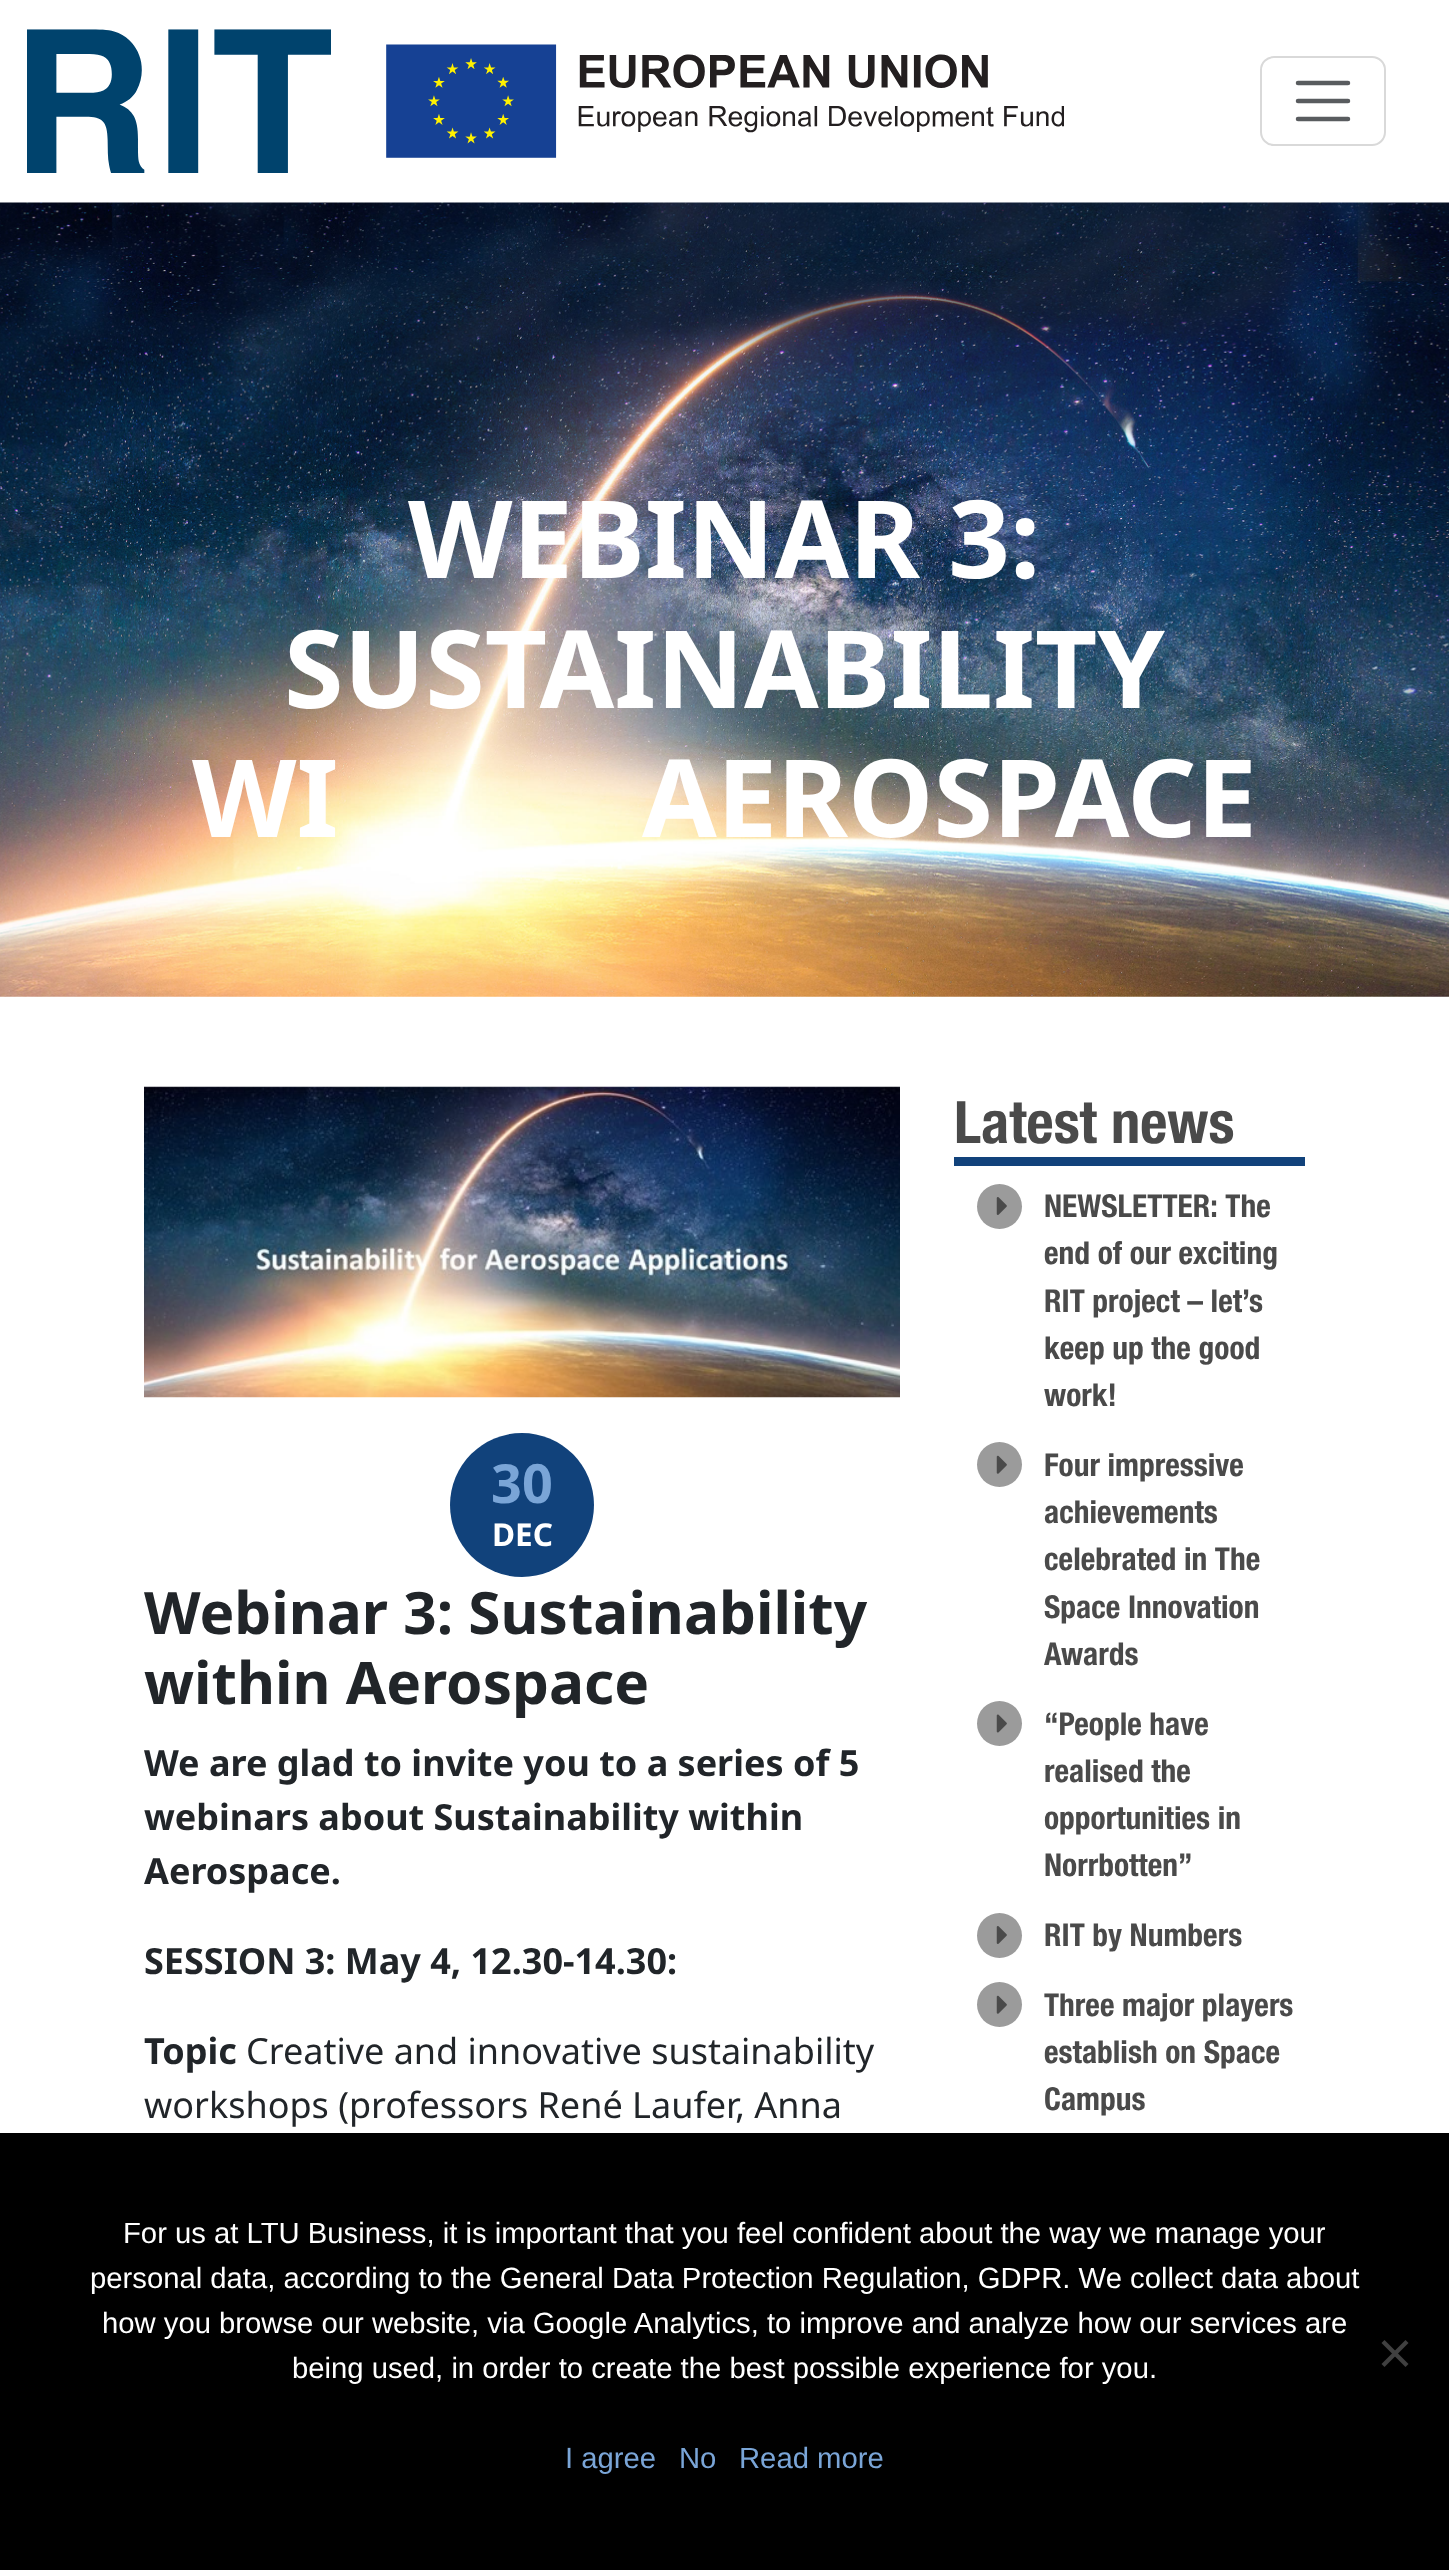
<svg xmlns="http://www.w3.org/2000/svg" width="1449" height="2570">
<style>
.a{font:bold 108px Noto Sans;fill:#fff}
.b{font:bold 54px Noto Sans;fill:#7aa5d7}
.c{font:bold 31.5px Noto Sans;fill:#fff}
.d{font:bold 58.5px Noto Sans;fill:#212529}
.e{font:bold 36px Noto Sans;fill:#212529}
.f{font:36px Noto Sans;fill:#212529}
.g{font:bold 58.5px Helvetica Neue;fill:#4a4a4a}
.h{font:bold 31.5px Helvetica Neue;fill:#4a4a4a}
.i{font:29.25px Liberation Sans;fill:#fff}
.j{font:29.25px Liberation Sans;fill:#7aa5d7}
</style>
<rect width="100%" height="100%" fill="#fff"/>
<image href="1.png" x="27" y="29" width="1037" height="144"/>
<rect fill="none" stroke="#d9d9d9" stroke-width="2" x="1261" y="57" width="124" height="88" rx="13"/>
<path fill="none" stroke="#595c5f" stroke-width="4.5" stroke-linecap="round" d="M1298 83h50m-50 18h50m-50 18h50"/>
<image href="2.png" x="0" y="202" width="1449" height="795"/>
<image href="3.png" x="144" y="1086" width="756" height="312"/>
<circle fill="#11427b" cx="522" cy="1505" r="72"/>
<path fill="#11427b" d="M954 1157h351v9H954z"/>
<circle fill="#9b9b9b" cx="999.5" cy="1206.5" r="22.5"/>
<image href="4.png" x="996" y="1197" width="11" height="18"/>
<circle fill="#9b9b9b" cx="999.5" cy="1464.5" r="22.5"/>
<image href="5.png" x="996" y="1455" width="11" height="19"/>
<circle fill="#9b9b9b" cx="999.5" cy="1723.5" r="22.5"/>
<image href="6.png" x="996" y="1714" width="11" height="19"/>
<circle fill="#9b9b9b" cx="999.5" cy="1935.5" r="22.5"/>
<image href="4.png" x="996" y="1926" width="11" height="18"/>
<circle fill="#9b9b9b" cx="999.5" cy="2004.5" r="22.5"/>
<image href="5.png" x="996" y="1995" width="11" height="19"/>
<path fill="#000" d="M0 2133h1449v437H0z"/>
<path fill="#404040" d="M1405.5 2340l3 3l-24 24l-3-3z"/>
<path fill="#404040" d="M1381.5 2343l3-3l24 24l-3 3z"/>
<text class="a" x="408" y="578">WEBINAR 3:</text>
<text class="a" x="284" y="708">SUSTAINABILITY</text>
<text class="a" x="192" y="837">WI</text>
<text class="a" x="642" y="837">AEROSPACE</text>
<text class="b" x="491" y="1503">30</text>
<text class="c" x="492" y="1546">DEC</text>
<text class="d" x="144" y="1634">Webinar 3: Sustainability</text>
<text class="d" x="144" y="1704">within Aerospace</text>
<text class="e" x="144" y="1776">We are glad to invite you to a series of 5</text>
<text class="e" x="144" y="1830">webinars about Sustainability within</text>
<text class="e" x="144" y="1884">Aerospace.</text>
<text class="e" x="144" y="1974">SESSION 3: May 4, 12.30-14.30:</text>
<text class="e" x="144" y="2064">Topic</text>
<text class="f" x="246" y="2064">Creative and innovative sustainability</text>
<text class="f" x="144" y="2118">workshops (professors René Laufer, Anna</text>
<text class="g" x="954" y="1143">Latest news</text>
<text class="h" x="1044" y="1217">NEWSLETTER: The</text>
<text class="h" x="1044" y="1264">end of our exciting</text>
<text class="h" x="1044" y="1312">RIT project – let’s</text>
<text class="h" x="1044" y="1359">keep up the good</text>
<text class="h" x="1044" y="1406">work!</text>
<text class="h" x="1044" y="1476">Four impressive</text>
<text class="h" x="1044" y="1523">achievements</text>
<text class="h" x="1044" y="1570">celebrated in The</text>
<text class="h" x="1044" y="1618">Space Innovation</text>
<text class="h" x="1044" y="1665">Awards</text>
<text class="h" x="1044" y="1735">“People have</text>
<text class="h" x="1044" y="1782">realised the</text>
<text class="h" x="1044" y="1829">opportunities in</text>
<text class="h" x="1044" y="1876">Norrbotten”</text>
<text class="h" x="1044" y="1946">RIT by Numbers</text>
<text class="h" x="1044" y="2016">Three major players</text>
<text class="h" x="1044" y="2063">establish on Space</text>
<text class="h" x="1044" y="2110">Campus</text>
<text class="i" x="123" y="2243">For us at LTU Business, it is important that you feel confident about the way we manage your</text>
<text class="i" x="90" y="2288">personal data, according to the General Data Protection Regulation, GDPR. We collect data about</text>
<text class="i" x="102" y="2333">how you browse our website, via Google Analytics, to improve and analyze how our services are</text>
<text class="i" x="292" y="2378">being used, in order to create the best possible experience for you.</text>
<text class="j" x="565" y="2468">I agree</text>
<text class="j" x="679" y="2468">No</text>
<text class="j" x="739" y="2468">Read more</text>
</svg>
